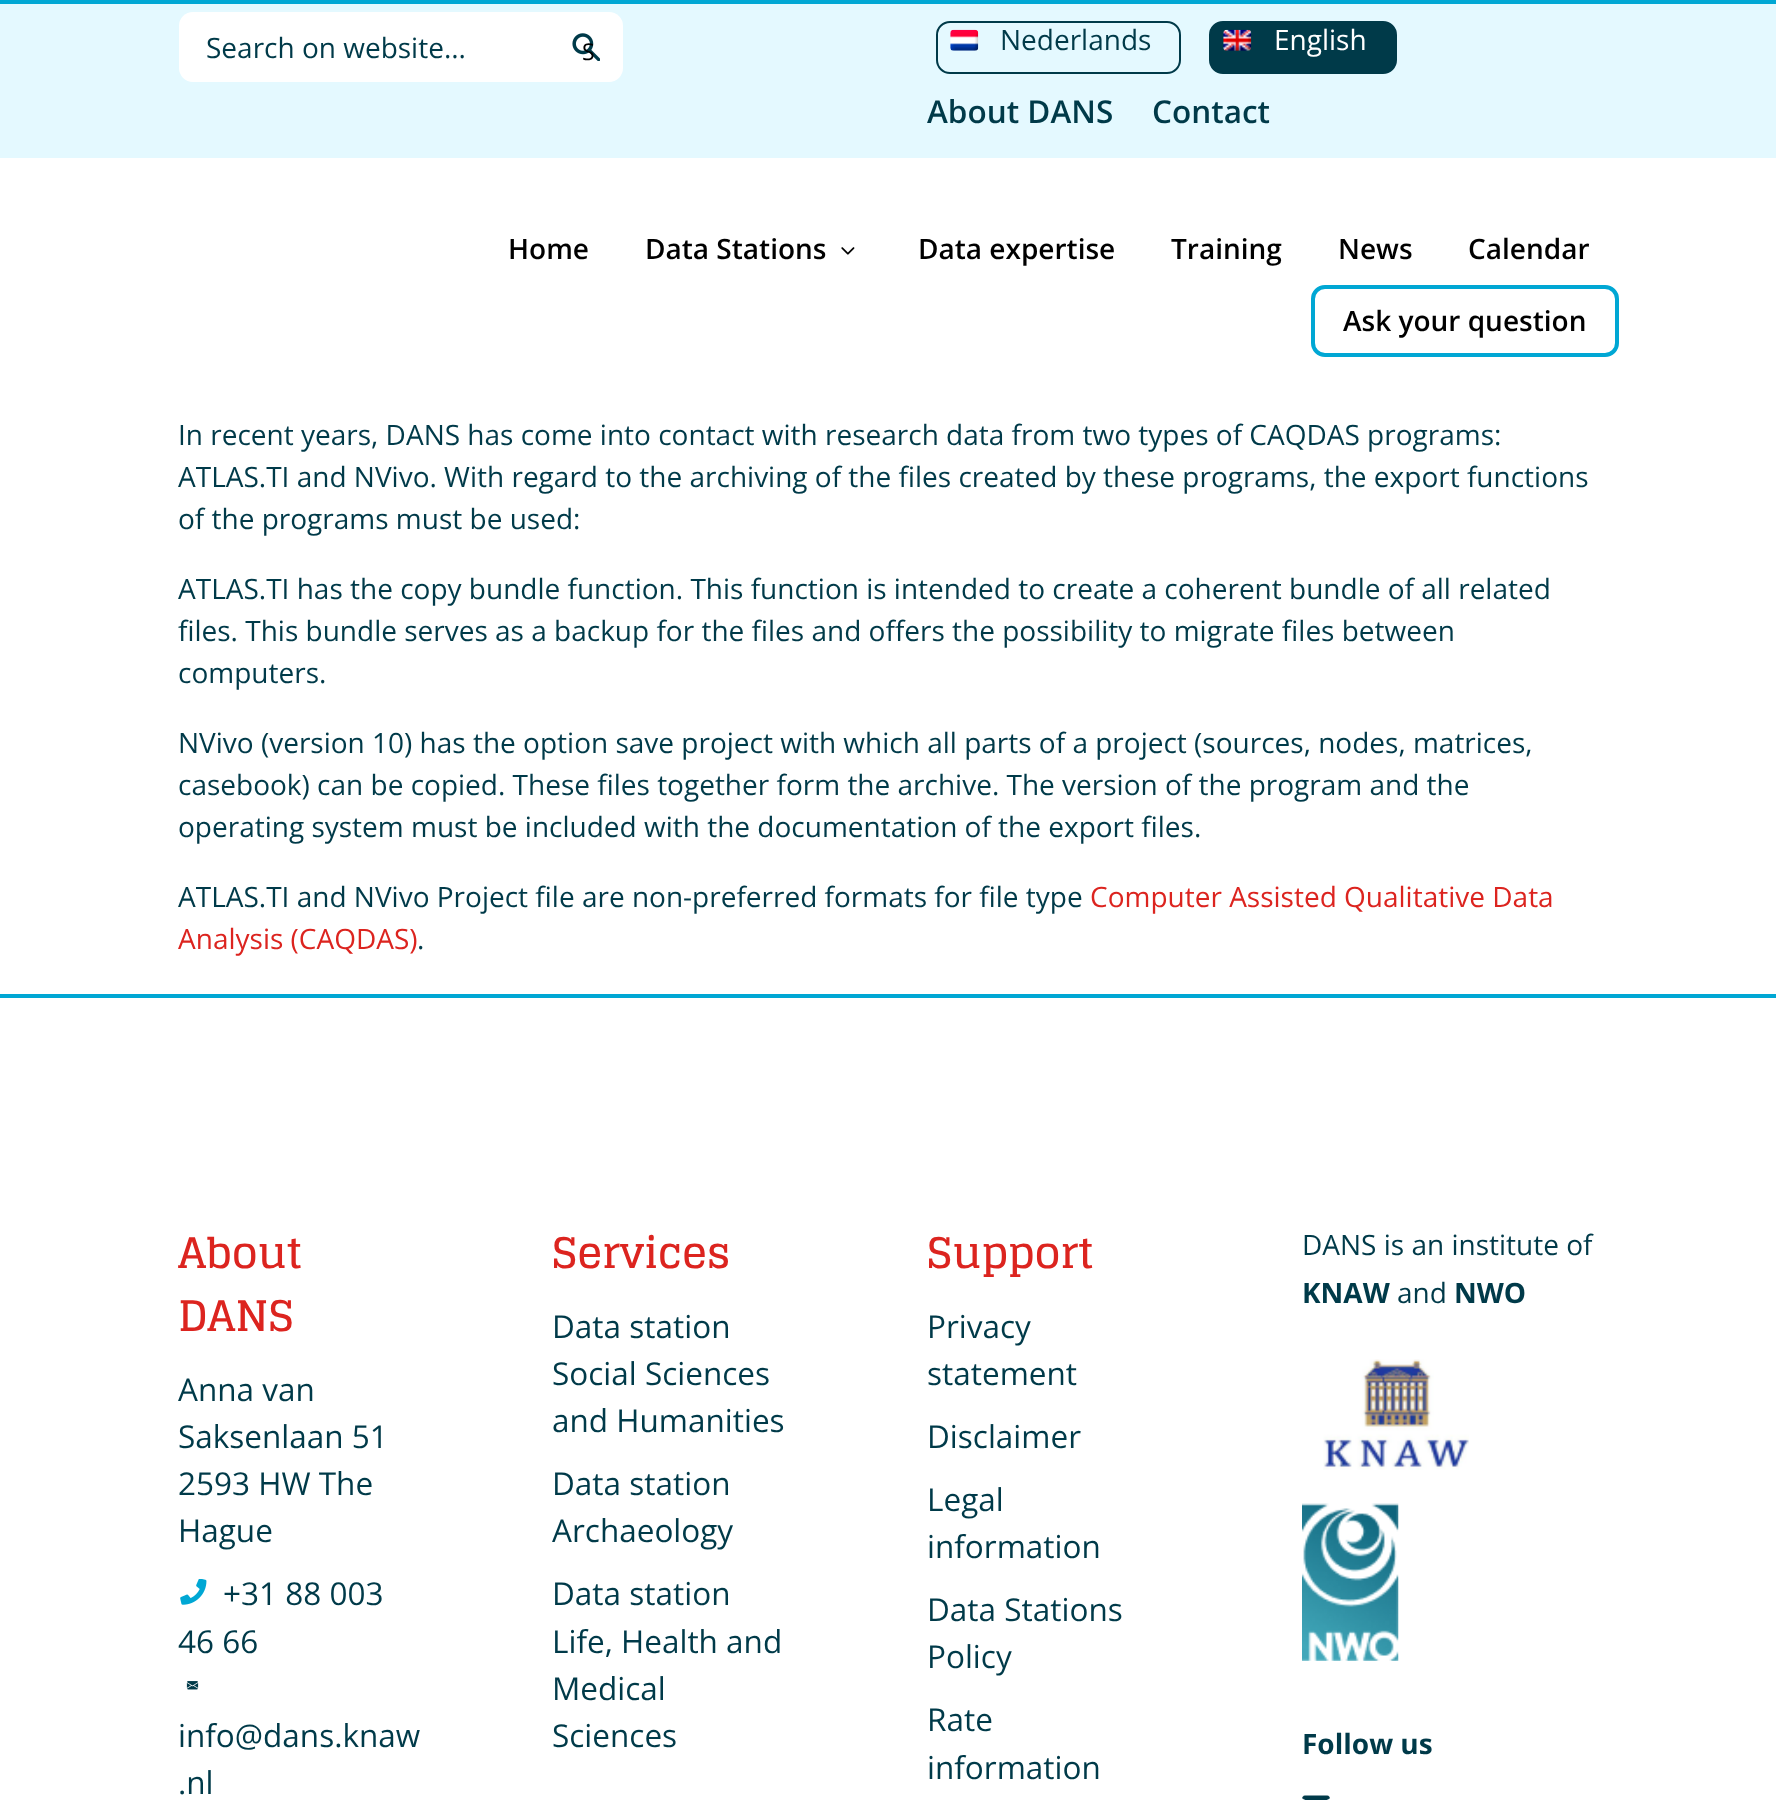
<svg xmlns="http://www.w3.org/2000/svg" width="1776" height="1800">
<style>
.a{font:28px Open Sans;fill:#003a49}
.b{font:23px Open Sans;fill:#000}
.c{font:28px Open Sans;fill:#fff}
.d{font:600 31.5px Open Sans;fill:#003a49}
.e{font:600 28px Open Sans;fill:#000}
.f{font:28px Open Sans;fill:#dc241f}
.g{font:bold 42px Glegoo;fill:#dc241f}
.h{font:31.5px Open Sans;fill:#003a49}
.i{font:bold 28px Open Sans;fill:#003a49}
</style>
<rect width="100%" height="100%" fill="#fff"/>
<path fill="#e4f9ff" d="M0 4h1776v154H0z"/>
<path fill="#00a7d4" d="M0 0h1776v4H0z"/>
<rect fill="#fff" x="179" y="12" width="444" height="70" rx="14"/>
<image href="1.png" x="572" y="33" width="28" height="28"/>
<rect fill="none" stroke="#003a49" stroke-width="2" x="937" y="22" width="243" height="51" rx="13"/>
<image href="2.png" x="950" y="29" width="29" height="22"/>
<rect fill="#003a49" stroke="#003a49" stroke-width="2" x="1210" y="22" width="186" height="51" rx="13"/>
<image href="3.png" x="1223" y="29" width="29" height="22"/>
<image href="4.png" x="841" y="247" width="14" height="8"/>
<rect fill="none" stroke="#00a7d4" stroke-width="4" x="1313" y="287" width="304" height="68" rx="12"/>
<path fill="#00a7d4" d="M0 994h1776v4H0z"/>
<image href="5.png" x="180" y="1579" width="27" height="26"/>
<image href="6.png" x="186" y="1681" width="13" height="9"/>
<image href="7.png" x="1323" y="1359" width="146" height="111"/>
<image href="8.png" x="1302" y="1503" width="97" height="158"/>
<image href="9.png" x="1302" y="1795" width="28" height="5"/>
<text class="a" x="206" y="58">Search on website...</text>
<text class="b" x="582" y="60">S</text>
<text class="a" x="1000" y="50">Nederlands</text>
<text class="c" x="1274" y="50">English</text>
<text class="d" x="927" y="123">About DANS</text>
<text class="d" x="1152" y="123">Contact</text>
<text class="e" x="508" y="259">Home</text>
<text class="e" x="645" y="259">Data Stations</text>
<text class="e" x="918" y="259">Data expertise</text>
<text class="e" x="1171" y="259">Training</text>
<text class="e" x="1338" y="259">News</text>
<text class="e" x="1468" y="259">Calendar</text>
<text class="e" x="1343" y="331">Ask your question</text>
<text class="a" x="178" y="445">In recent years, DANS has come into contact with research data from two types of CAQDAS programs:</text>
<text class="a" x="178" y="487">ATLAS.TI and NVivo. With regard to the archiving of the files created by these programs, the export functions</text>
<text class="a" x="178" y="529">of the programs must be used:</text>
<text class="a" x="178" y="599">ATLAS.TI has the copy bundle function. This function is intended to create a coherent bundle of all related</text>
<text class="a" x="178" y="641">files. This bundle serves as a backup for the files and offers the possibility to migrate files between</text>
<text class="a" x="178" y="683">computers.</text>
<text class="a" x="178" y="753">NVivo (version 10) has the option save project with which all parts of a project (sources, nodes, matrices,</text>
<text class="a" x="178" y="795">casebook) can be copied. These files together form the archive. The version of the program and the</text>
<text class="a" x="178" y="837">operating system must be included with the documentation of the export files.</text>
<text class="a" x="178" y="907">ATLAS.TI and NVivo Project file are non-preferred formats for file type</text>
<text class="f" x="1090" y="907">Computer Assisted Qualitative Data</text>
<text class="f" x="178" y="949">Analysis (CAQDAS)</text>
<text class="a" x="417" y="949">.</text>
<text class="g" x="178" y="1268">About</text>
<text class="g" x="178" y="1331">DANS</text>
<text class="h" x="178" y="1401">Anna van</text>
<text class="h" x="178" y="1448">Saksenlaan 51</text>
<text class="h" x="178" y="1495">2593 HW The</text>
<text class="h" x="178" y="1542">Hague</text>
<text class="h" x="223" y="1605">+31 88 003</text>
<text class="h" x="178" y="1653">46 66</text>
<text class="h" x="178" y="1747">info@dans.knaw</text>
<text class="h" x="178" y="1794">.nl</text>
<text class="g" x="552" y="1268">Services</text>
<text class="h" x="552" y="1338">Data station</text>
<text class="h" x="552" y="1385">Social Sciences</text>
<text class="h" x="552" y="1432">and Humanities</text>
<text class="h" x="552" y="1495">Data station</text>
<text class="h" x="552" y="1542">Archaeology</text>
<text class="h" x="552" y="1605">Data station</text>
<text class="h" x="552" y="1653">Life, Health and</text>
<text class="h" x="552" y="1700">Medical</text>
<text class="h" x="552" y="1747">Sciences</text>
<text class="g" x="927" y="1268">Support</text>
<text class="h" x="927" y="1338">Privacy</text>
<text class="h" x="927" y="1385">statement</text>
<text class="h" x="927" y="1448">Disclaimer</text>
<text class="h" x="927" y="1511">Legal</text>
<text class="h" x="927" y="1558">information</text>
<text class="h" x="927" y="1621">Data Stations</text>
<text class="h" x="927" y="1668">Policy</text>
<text class="h" x="927" y="1731">Rate</text>
<text class="h" x="927" y="1779">information</text>
<text class="a" x="1302" y="1255">DANS is an institute of</text>
<text class="i" x="1302" y="1303">KNAW</text>
<text class="a" x="1397" y="1303">and</text>
<text class="i" x="1454" y="1303">NWO</text>
<text class="i" x="1302" y="1754">Follow us</text>
</svg>
